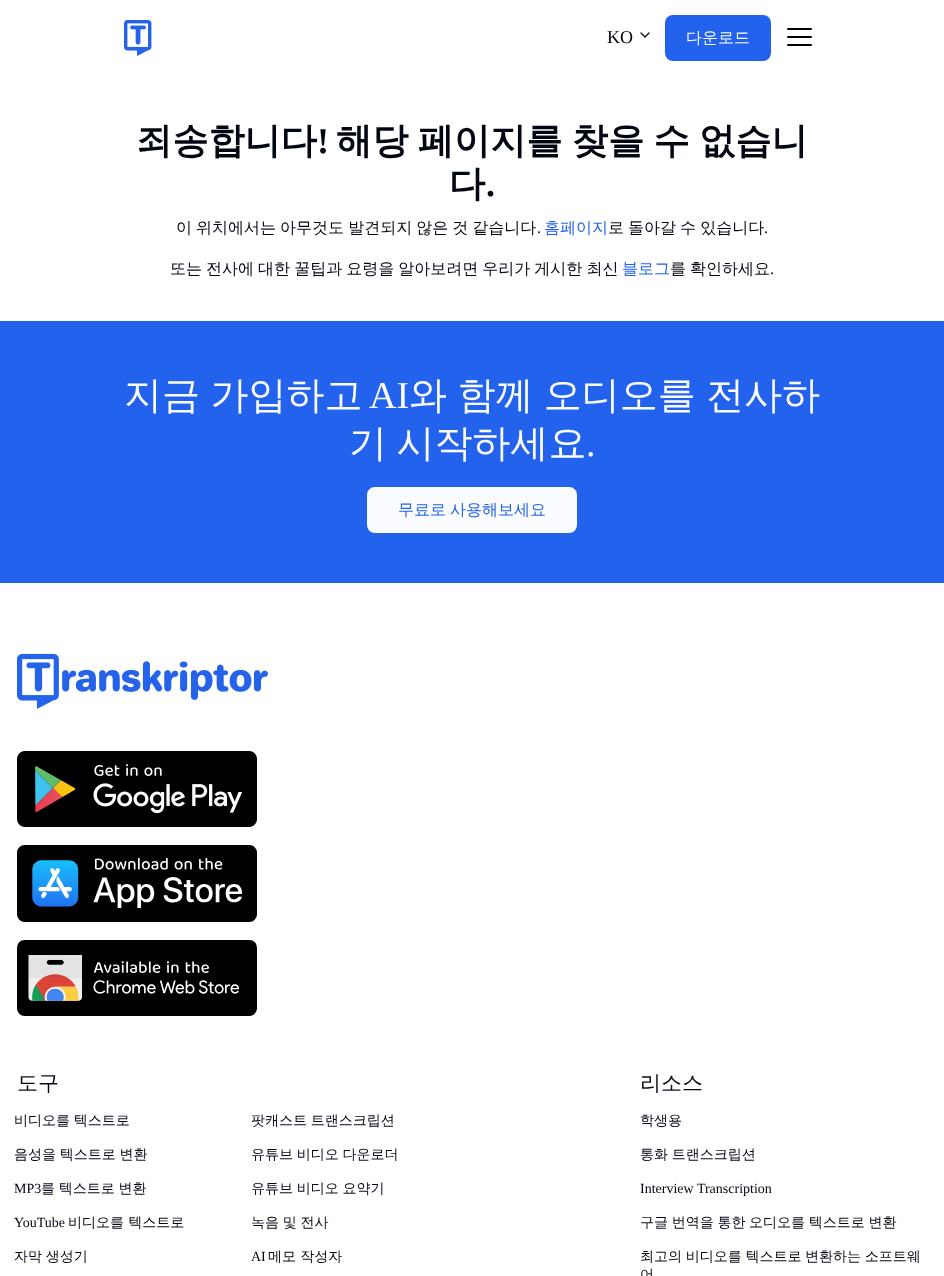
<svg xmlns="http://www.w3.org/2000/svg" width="944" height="1276">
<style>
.a{font:18px Liberation Serif;fill:#030712}
.b{font:500 16px WenQuanYi Zen Hei;fill:#fafcff}
.c{font:bold 36.2px WenQuanYi Zen Hei;fill:#030712}
.d{font:bold 36.2px Liberation Serif;fill:#030712}
.e{font:500 16px WenQuanYi Zen Hei;fill:#030712}
.f{font:16px Liberation Serif;fill:#030712}
.g{font:500 16px WenQuanYi Zen Hei;fill:#2262ec}
.h{font:500 38px WenQuanYi Zen Hei;fill:#fafcff}
.i{font:38px Liberation Serif;fill:#fafcff}
.j{font:500 21px WenQuanYi Zen Hei;fill:#030712}
.k{font:500 14px WenQuanYi Zen Hei;fill:#030712}
.l{font:14px Liberation Serif;fill:#030712}
</style>
<rect width="100%" height="100%" fill="#fff"/>
<image href="1.png" x="124" y="20" width="28" height="36"/>
<path fill="none" stroke="#030712" stroke-width="1.3" stroke-linecap="round" stroke-linejoin="round" d="M641 33l4 4l4-4"/>
<rect fill="#2262ec" x="665" y="15" width="106" height="46" rx="8"/>
<rect fill="#000" x="787" y="28" width="25" height="2" rx="1"/>
<rect fill="#000" x="787" y="36" width="25" height="2" rx="1"/>
<rect fill="#000" x="787" y="44" width="25" height="2" rx="1"/>
<path fill="#2262ec" d="M0 321h944v262H0z"/>
<rect fill="#fafcff" x="367" y="487" width="210" height="46" rx="8"/>
<image href="2.png" x="17" y="653" width="251" height="56"/>
<image href="3.png" x="17" y="751" width="240" height="76"/>
<image href="4.png" x="17" y="845" width="240" height="77"/>
<image href="5.png" x="17" y="940" width="240" height="76"/>
<text class="a" x="607" y="43">KO</text>
<text class="b" x="686" y="43">다운로드</text>
<text class="c" x="136" y="153">죄송합니다</text>
<text class="d" x="317" y="153">!</text>
<text class="c" x="336" y="153" word-spacing="-1.5">해당 페이지를 찾을 수 없습니</text>
<text class="c" x="449" y="196">다</text>
<text class="d" x="486" y="196">.</text>
<text class="e" x="176" y="233" word-spacing="-0.75">이 위치에서는 아무것도 발견되지 않은 것 같습니다</text>
<text class="f" x="537" y="233">.</text>
<text class="g" x="544" y="233">홈페이지</text>
<text class="e" x="608" y="233" word-spacing="-0.75">로 돌아갈 수 있습니다</text>
<text class="f" x="764" y="233">.</text>
<text class="e" x="170" y="274" word-spacing="-0.75">또는 전사에 대한 꿀팁과 요령을 알아보려면 우리가 게시한 최신</text>
<text class="g" x="622" y="274">블로그</text>
<text class="e" x="670" y="274" word-spacing="-0.75">를 확인하세요</text>
<text class="f" x="770" y="274">.</text>
<text class="h" x="124" y="408" word-spacing="-1">지금 가입하고</text>
<text class="i" x="369" y="408">AI</text>
<text class="h" x="409" y="408" word-spacing="-1">와 함께 오디오를 전사하</text>
<text class="h" x="349" y="456" word-spacing="-2">기 시작하세요</text>
<text class="i" x="586" y="456">.</text>
<text class="g" x="398" y="515" word-spacing="-0.75">무료로 사용해보세요</text>
<text class="j" x="17" y="1090">도구</text>
<text class="k" x="14" y="1125" word-spacing="-0.5">비디오를 텍스트로</text>
<text class="k" x="14" y="1159" word-spacing="-0.5">음성을 텍스트로 변환</text>
<text class="l" x="14" y="1193">MP3</text>
<text class="k" x="41" y="1193" word-spacing="-0.5">를 텍스트로 변환</text>
<text class="l" x="14" y="1227">YouTube</text>
<text class="k" x="68" y="1227">비디오를 텍스트로</text>
<text class="k" x="14" y="1261" word-spacing="-0.5">자막 생성기</text>
<text class="k" x="251" y="1125" word-spacing="-0.5">팟캐스트 트랜스크립션</text>
<text class="k" x="251" y="1159" word-spacing="-0.5">유튜브 비디오 다운로더</text>
<text class="k" x="251" y="1193" word-spacing="-0.5">유튜브 비디오 요약기</text>
<text class="k" x="251" y="1227" word-spacing="-0.5">녹음 및 전사</text>
<text class="l" x="251" y="1261">AI</text>
<text class="k" x="268" y="1261">메모 작성자</text>
<text class="j" x="640" y="1090">리소스</text>
<text class="k" x="640" y="1125">학생용</text>
<text class="k" x="640" y="1159" word-spacing="-0.5">통화 트랜스크립션</text>
<text class="l" x="640" y="1193">Interview Transcription</text>
<text class="k" x="640" y="1227" word-spacing="-0.5">구글 번역을 통한 오디오를 텍스트로 변환</text>
<text class="k" x="640" y="1261" word-spacing="-0.5">최고의 비디오를 텍스트로 변환하는 소프트웨</text>
<text class="k" x="640" y="1279">어</text>
</svg>
